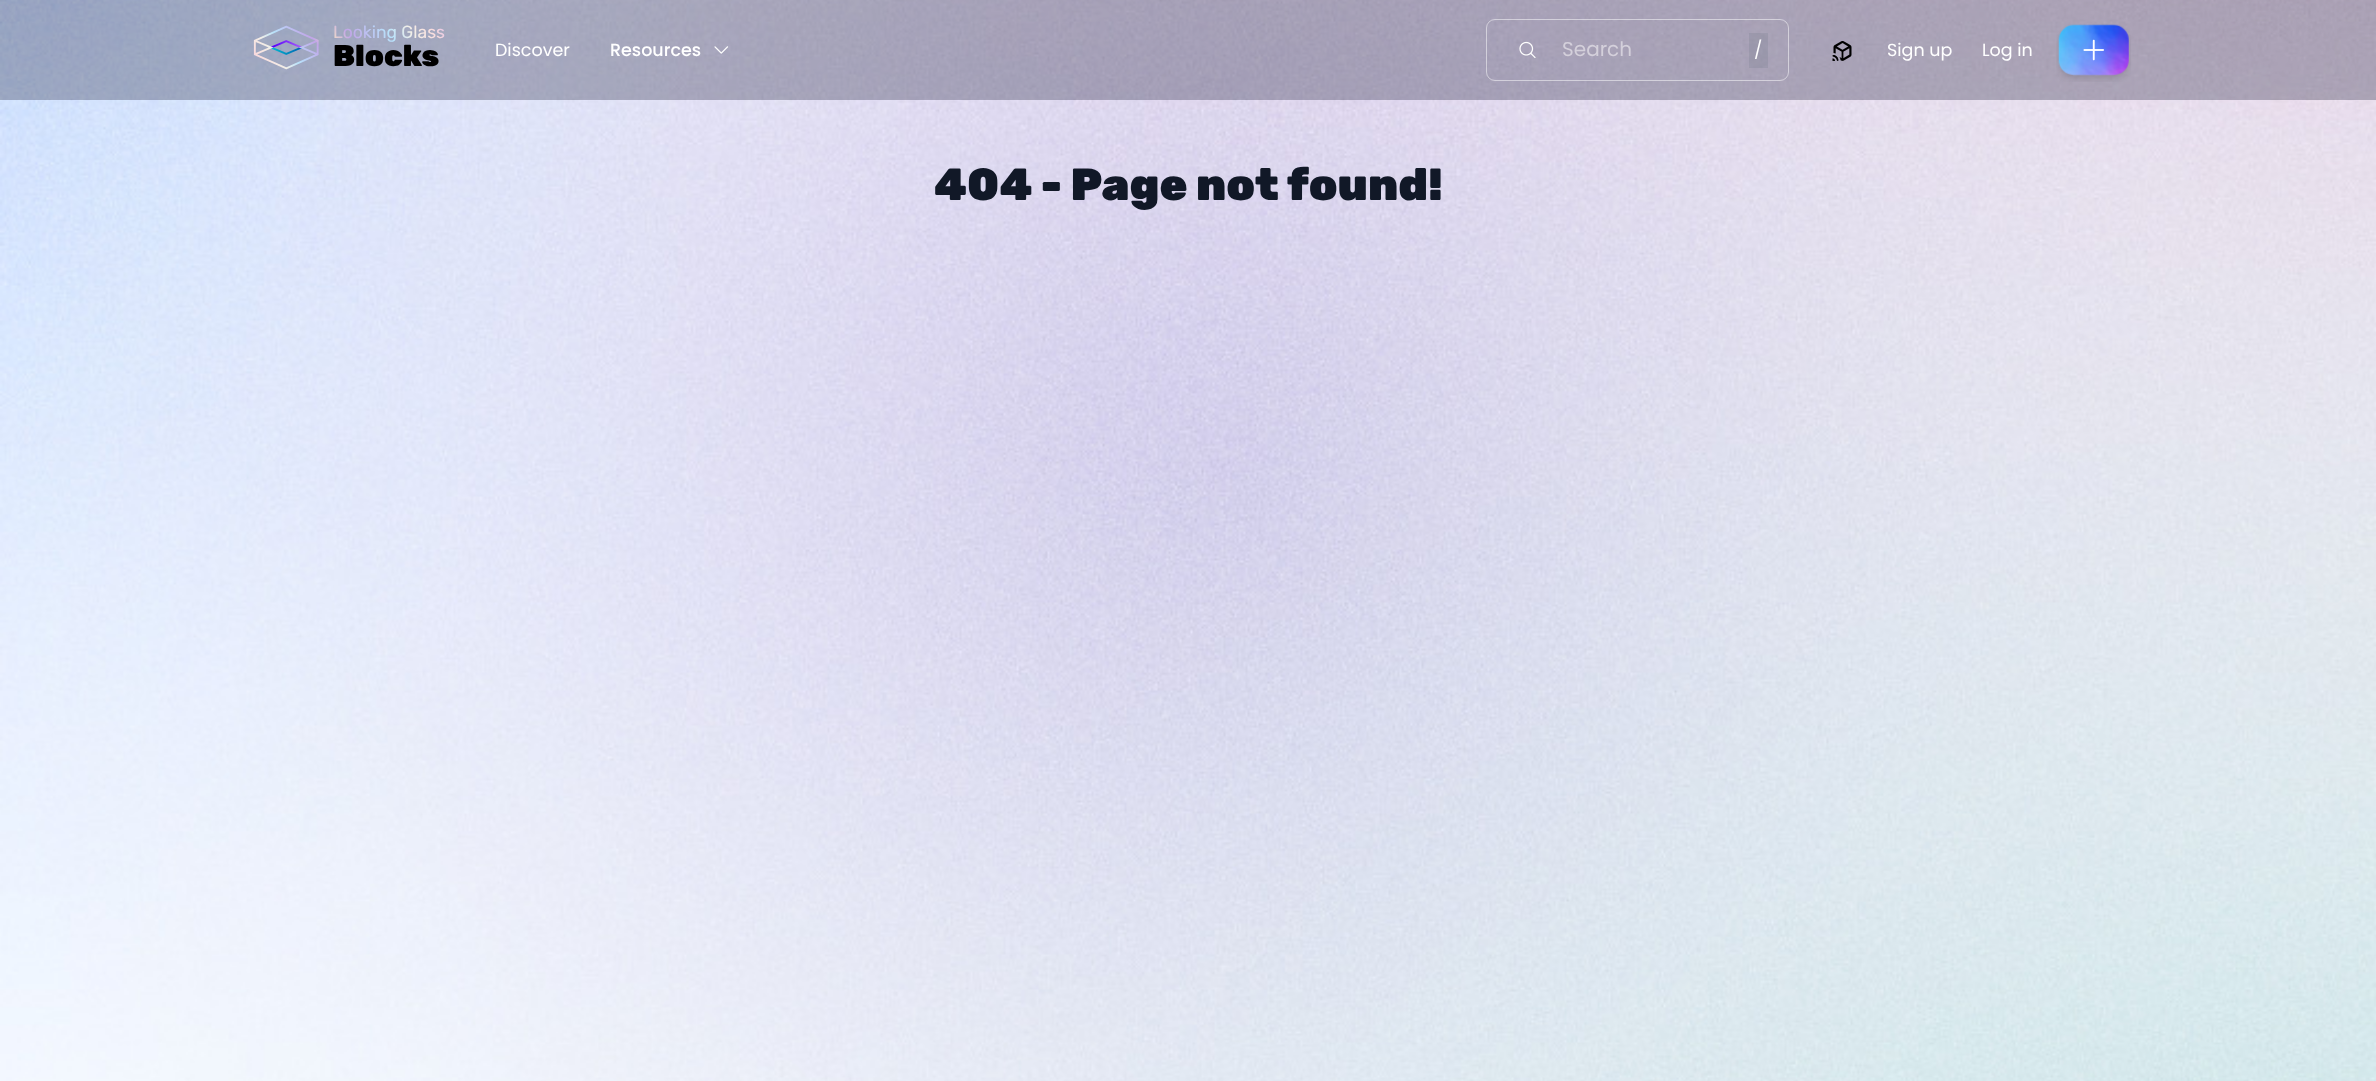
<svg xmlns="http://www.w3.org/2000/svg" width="2376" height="1081">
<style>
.a{font:17.5px Rubik;fill:url(#g1)}
.b{font:900 30px Rubik;fill:#000}
.c{font:17.5px Poppins;fill:#fff}
.d{font:500 17.5px Poppins;fill:#fff}
.e{font:20px Poppins;fill:#d4d0db}
.f{font:900 45px Rubik;fill:#111827}
</style>
<defs>
<linearGradient id="g1" gradientUnits="userSpaceOnUse" x1="341" y1="59" x2="437" y2="5.8"><stop offset="0.02" stop-color="#f1dfc6"/><stop offset="0.17" stop-color="#c1a4e8"/><stop offset="0.5" stop-color="#b8e2fb"/><stop offset="0.68" stop-color="#f2efe8"/><stop offset="0.86" stop-color="#f9dcdd"/><stop offset="0.98" stop-color="#e1c1e5"/></linearGradient>
</defs>
<rect width="100%" height="100%" fill="#fff"/>
<image href="1.png" x="0" y="0" width="2376" height="1081"/>
<path fill="#1f1e374d" d="M0 0h2376v100H0z"/>
<image href="2.png" x="253" y="25" width="66" height="45"/>
<image href="3.png" x="714" y="46" width="15" height="8"/>
<rect fill="none" stroke="#ffffff80" x="1486.5" y="19.5" width="302" height="61" rx="8.5"/>
<image href="4.png" x="1519" y="41" width="17" height="17"/>
<path fill="#6b728033" d="M1749 33h19v35H1749z"/>
<image href="5.png" x="1832" y="41" width="20" height="20"/>
<image href="6.png" x="2056" y="24" width="75" height="58"/>
<image href="7.png" x="2083" y="39" width="21" height="22"/>
<text class="a" x="333" y="38">Looking Glass</text>
<text class="b" x="333" y="66">Blocks</text>
<text class="c" x="495" y="56">Discover</text>
<text class="d" x="610" y="56">Resources</text>
<text class="e" x="1562" y="56">Search</text>
<text class="c" x="1754" y="56">/</text>
<text class="c" x="1887" y="56">Sign up</text>
<text class="c" x="1982" y="56">Log in</text>
<text class="f" x="934" y="200">404 - Page not found!</text>
</svg>
